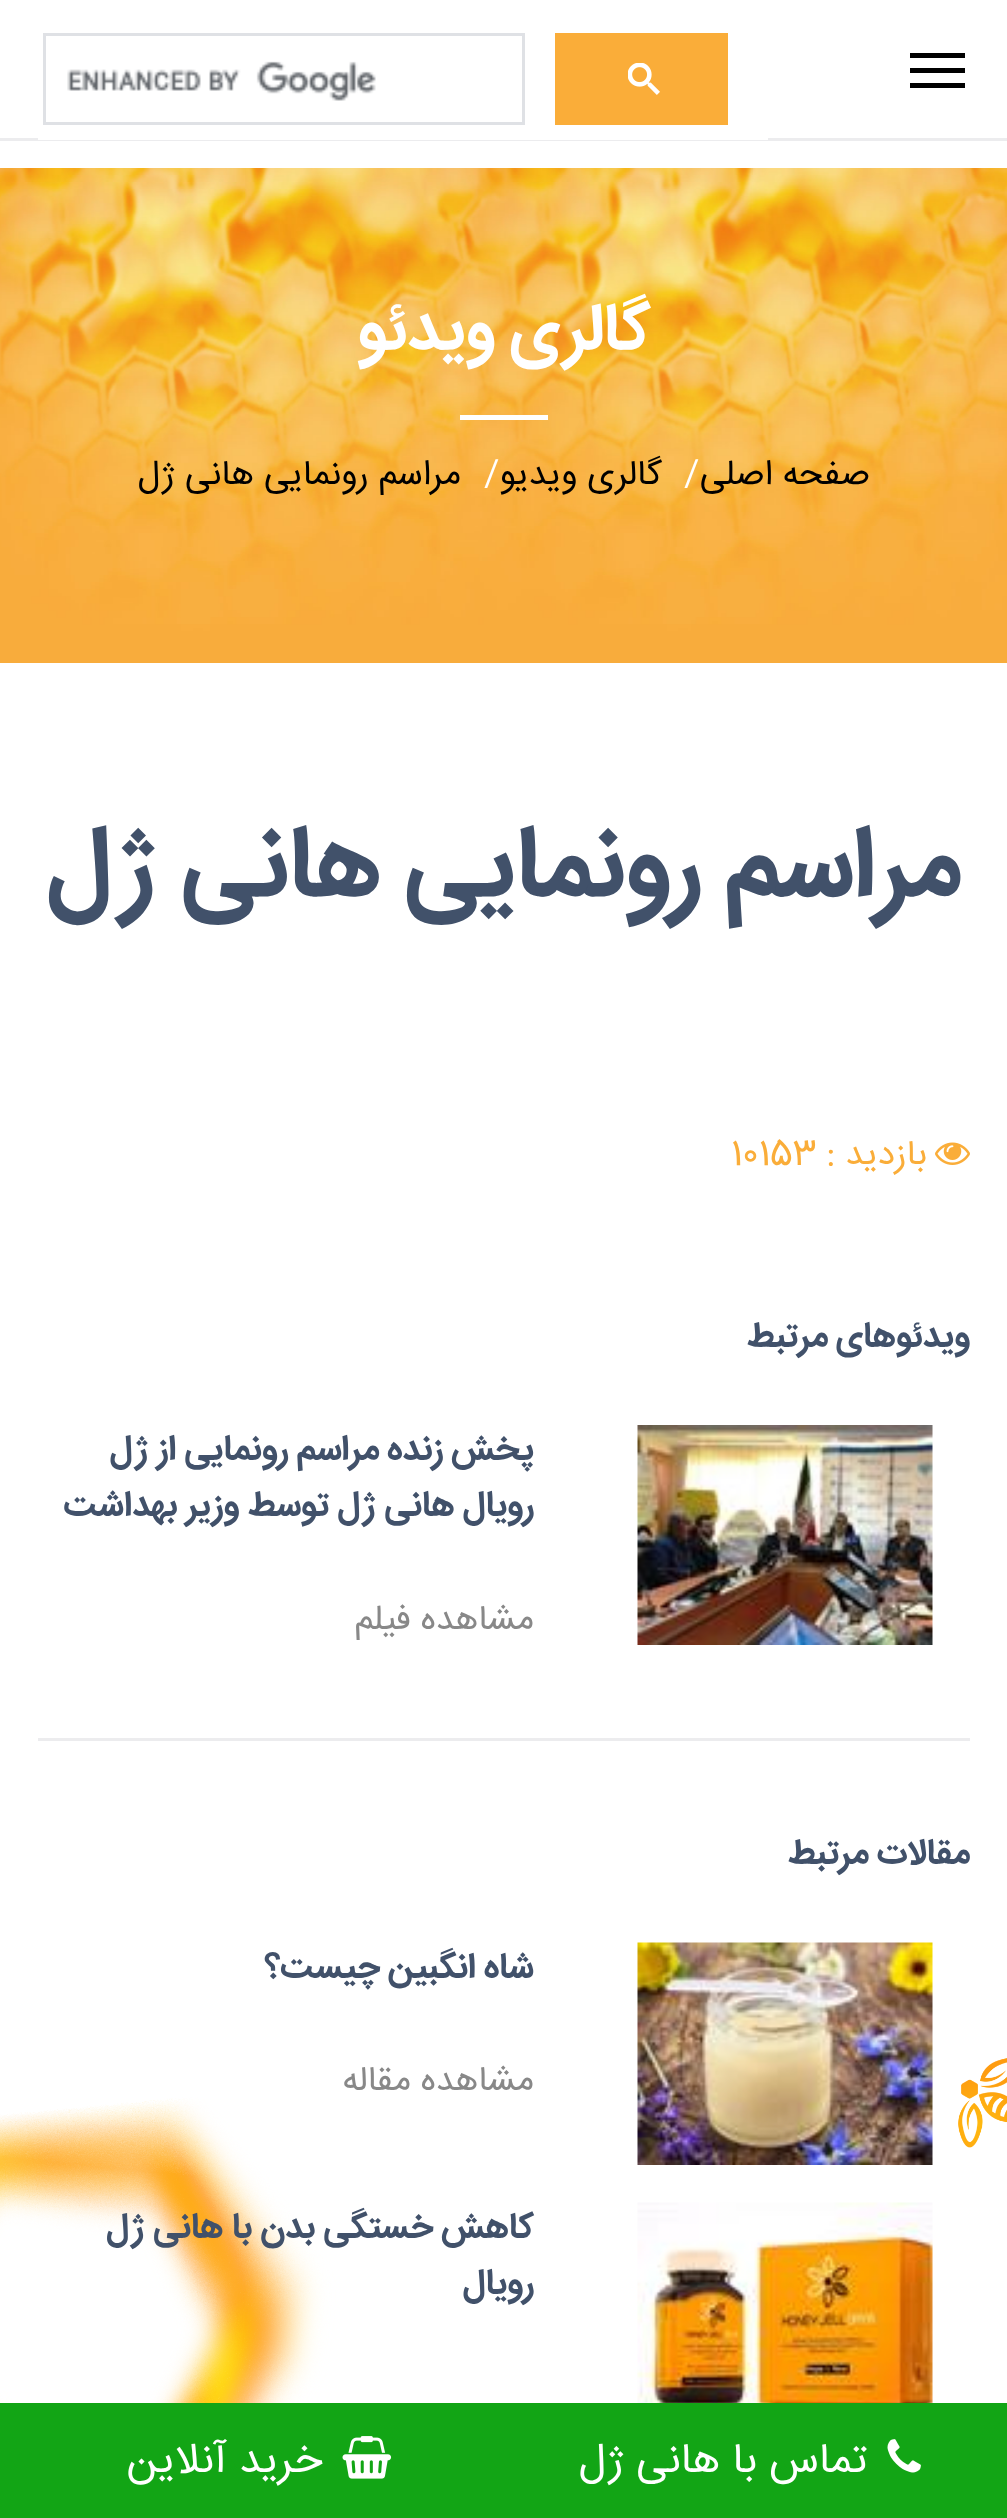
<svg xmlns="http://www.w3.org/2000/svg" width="1007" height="2518">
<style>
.a{font:bold 65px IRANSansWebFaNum;direction:rtl;fill:#fff}
.b{font:35px IRANSansWebFaNum;direction:rtl;fill:#000}
.c{font:35px IRANSansWebFaNum;fill:#fff}
.d{font:bold 100px IRANSansWebFaNum;direction:rtl;fill:#41516a}
.e{font:35px IRANSansWebFaNum;direction:rtl;fill:#faad39}
.f{font:35px IRANSansWebFaNum;fill:#faad39}
.g{font:bold 35px IRANSansWebFaNum;direction:rtl;fill:#41516a}
.h{font:35px IRANSansWebFaNum;direction:rtl;fill:#888}
.i{font:42.5px IRANSansWebFaNum;direction:rtl;fill:#fff}
</style>
<rect width="100%" height="100%" fill="#fff"/>
<path fill="#ececee" d="M0 138h1007v3H0z"/>
<path fill="#fff" d="M38 138h730v2H38z"/>
<path fill="#faad39" d="M555 33h173v92H555z"/>
<image href="1.png" x="628" y="63" width="32" height="32"/>
<path fill="none" stroke="#dfe1e5" stroke-width="3" d="M44.5 34.5h479v89H44.5z"/>
<image href="2.png" x="67" y="61" width="309" height="40"/>
<path fill="#000" d="M910 68h55v5H910z"/>
<path fill="#000" d="M910 53h55v5H910z"/>
<path fill="#000" d="M910 83h55v5H910z"/>
<image href="3.png" x="0" y="168" width="1007" height="495"/>
<path fill="#fff" d="M460 415h88v5H460z"/>
<image href="4.png" x="935" y="1142" width="35" height="23"/>
<image href="5.png" x="637" y="1425" width="296" height="220"/>
<path fill="#ececee" d="M38 1738h932v3H38z"/>
<image href="8.png" x="0" y="2058" width="1007" height="345"/>
<image href="6.png" x="637" y="1942" width="296" height="223"/>
<image href="7.png" x="637" y="2202" width="296" height="201"/>
<path fill="#12a515" d="M0 2403h1007v115H0z"/>
<image href="9.png" x="887" y="2439" width="34" height="34"/>
<image href="10.png" x="342" y="2436" width="50" height="43"/>
<text class="a" x="651" y="348">گالری ویدئو</text>
<text class="b" x="870" y="484">صفحه اصلی</text>
<text class="c" x="684" y="484">/</text>
<text class="b" x="662" y="484">گالری ویدیو</text>
<text class="c" x="484" y="484">/</text>
<text class="b" x="461" y="484">مراسم رونمایی هانی ژل</text>
<text class="d" x="961" y="894">مراسم رونمایی هانی ژل</text>
<text class="e" x="927" y="1164">بازدید :</text>
<text class="f" x="731" y="1164">10153</text>
<text class="g" x="970" y="1346">ویدئوهای مرتبط</text>
<text class="g" x="534" y="1459">پخش زنده مراسم رونمایی از ژل</text>
<text class="g" x="534" y="1515">رویال هانی ژل توسط وزیر بهداشت</text>
<text class="h" x="534" y="1629">مشاهده فیلم</text>
<text class="g" x="970" y="1863">مقالات مرتبط</text>
<text class="g" x="534" y="1977">شاه انگبین چیست؟</text>
<text class="h" x="534" y="2090">مشاهده مقاله</text>
<text class="g" x="534" y="2237">کاهش خستگی بدن با هانی ژل</text>
<text class="g" x="534" y="2293">رویال</text>
<text class="i" x="867" y="2472">تماس با هانی ژل</text>
<text class="i" x="322" y="2472">خرید آنلاین</text>
</svg>
